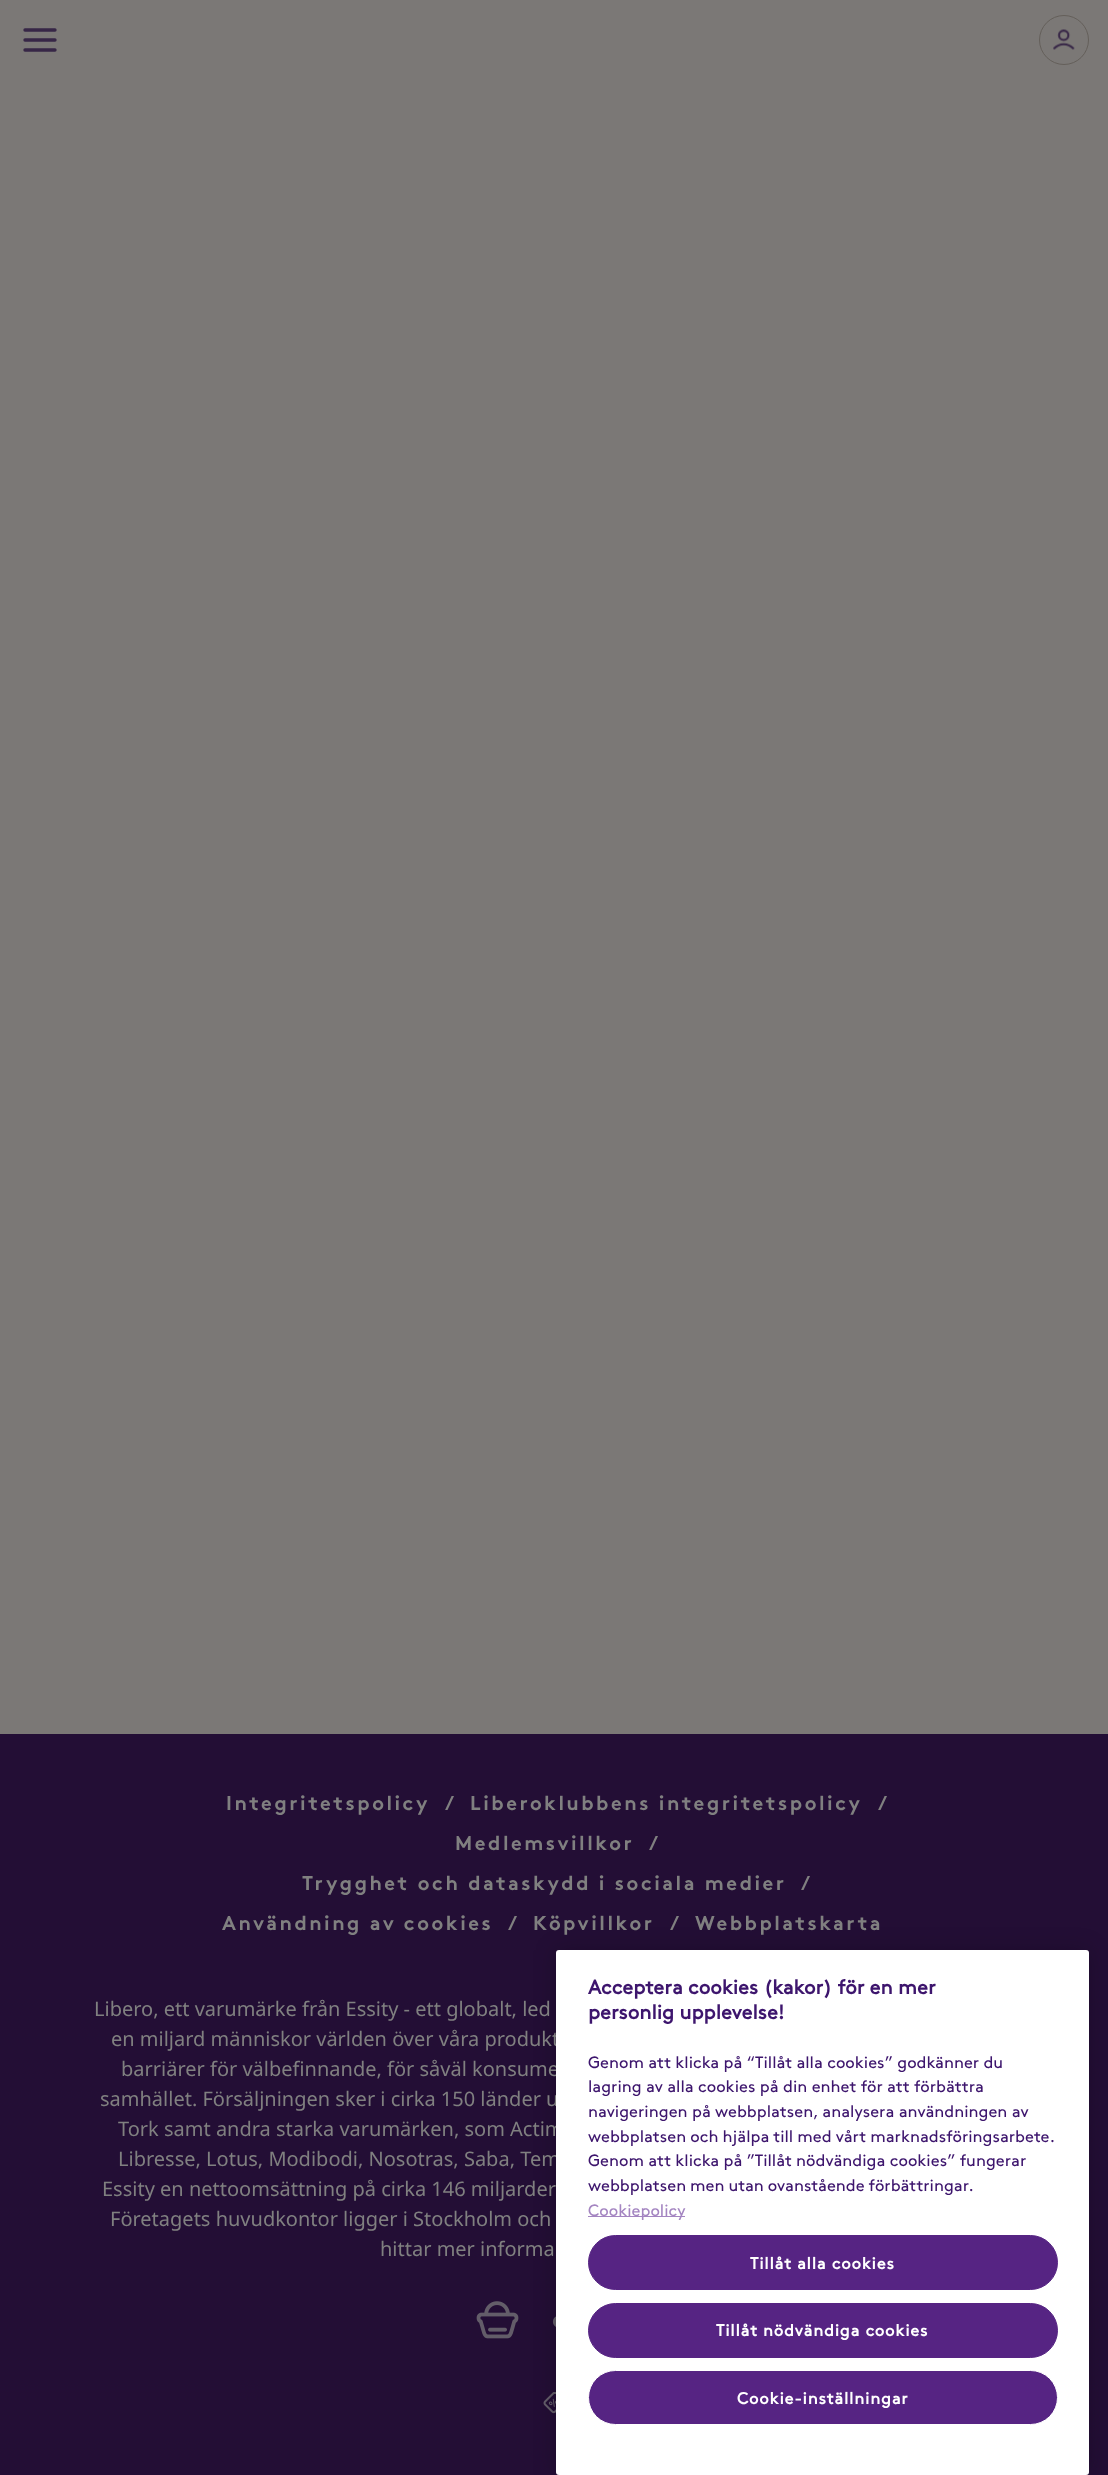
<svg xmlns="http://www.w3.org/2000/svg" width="1108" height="2475">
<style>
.a{font:bold 20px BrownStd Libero;letter-spacing:2.5px;fill:#808080}
.b{font:20px Noto Sans;fill:#808080}
.c{font:bold 20px 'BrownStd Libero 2';fill:#3d156d}
.d{font:16.4px BrownStd Libero;fill:#3d156d}
.e{font:16.4px BrownStd Libero;fill:#a485c1}
.f{font:bold 16.4px 'BrownStd Libero 2';letter-spacing:0.8px;fill:#fff}
</style>
<rect width="100%" height="100%" fill="#7b7876"/>
<path fill="#230e35" d="M0 1734h1108v741H0z"/>
<image href="1.png" x="476" y="2301" width="43" height="38"/>
<image href="2.png" x="552" y="2316" width="4" height="11"/>
<image href="3.png" x="543" y="2392" width="13" height="22"/>
<image href="4.png" x="23" y="28" width="34" height="24"/>
<circle fill="none" stroke="#645f5a" cx="1064" cy="40" r="24.5"/>
<image href="5.png" x="1053" y="29" width="22" height="21"/>
<rect fill="#00000033" filter="blur(11px)" x="556" y="1950" width="533" height="525" rx="3"/>
<text class="a" x="226" y="1810">Integritetspolicy</text>
<text class="a" x="445" y="1810">/</text>
<text class="a" x="470" y="1810">Liberoklubbens integritetspolicy</text>
<text class="a" x="878" y="1810">/</text>
<text class="a" x="455" y="1850">Medlemsvillkor</text>
<text class="a" x="649" y="1850">/</text>
<text class="a" x="302" y="1890">Trygghet och dataskydd i sociala medier</text>
<text class="a" x="801" y="1890">/</text>
<text class="a" x="222" y="1930">Användning av cookies</text>
<text class="a" x="508" y="1930">/</text>
<text class="a" x="533" y="1930">Köpvillkor</text>
<text class="a" x="670" y="1930">/</text>
<text class="a" x="695" y="1930">Webbplatskarta</text>
<text class="b" x="94" y="2016">Libero, ett varumärke från Essity - ett globalt, led</text>
<text class="b" x="111" y="2046">en miljard människor världen över våra produkt</text>
<text class="b" x="121" y="2076">barriärer för välbefinnande, för såväl konsume</text>
<text class="b" x="100" y="2106">samhället. Försäljningen sker i cirka 150 länder u</text>
<text class="b" x="118" y="2136">Tork samt andra starka varumärken, som Actim</text>
<text class="b" x="118" y="2166">Libresse, Lotus, Modibodi, Nosotras, Saba, Tem</text>
<text class="b" x="102" y="2196">Essity en nettoomsättning på cirka 146 miljarder</text>
<text class="b" x="110" y="2226">Företagets huvudkontor ligger i Stockholm och</text>
<text class="b" x="380" y="2256">hittar mer informa</text>
<rect fill="#fff" x="556" y="1950" width="533" height="525" rx="3"/>
<text class="c" x="588" y="1994">Acceptera cookies (kakor) för en mer</text>
<text class="c" x="588" y="2019">personlig upplevelse!</text>
<text class="d" x="588" y="2068">Genom att klicka på “Tillåt alla cookies” godkänner du</text>
<text class="d" x="588" y="2092">lagring av alla cookies på din enhet för att förbättra</text>
<text class="d" x="588" y="2117">navigeringen på webbplatsen, analysera användningen av</text>
<text class="d" x="588" y="2142" word-spacing="-0.25">webbplatsen och hjälpa till med vårt marknadsföringsarbete.</text>
<text class="d" x="588" y="2166">Genom att klicka på ”Tillåt nödvändiga cookies” fungerar</text>
<text class="d" x="588" y="2191" word-spacing="-0.5">webbplatsen men utan ovanstående förbättringar.</text>
<path fill="#a485c1" d="M588 2216h97v1H588z"/>
<text class="e" x="588" y="2216">Cookiepolicy</text>
<rect fill="#562483" stroke="#562483" x="588.5" y="2235.5" width="469" height="54" rx="27"/>
<text class="f" x="750" y="2269">Tillåt alla cookies</text>
<rect fill="#562483" stroke="#562483" x="588.5" y="2303.5" width="469" height="54" rx="27"/>
<text class="f" x="716" y="2336">Tillåt nödvändiga cookies</text>
<rect fill="#562483" stroke="#fff" x="588.5" y="2370.5" width="469" height="54" rx="27"/>
<text class="f" x="737" y="2404">Cookie-inställningar</text>
</svg>
